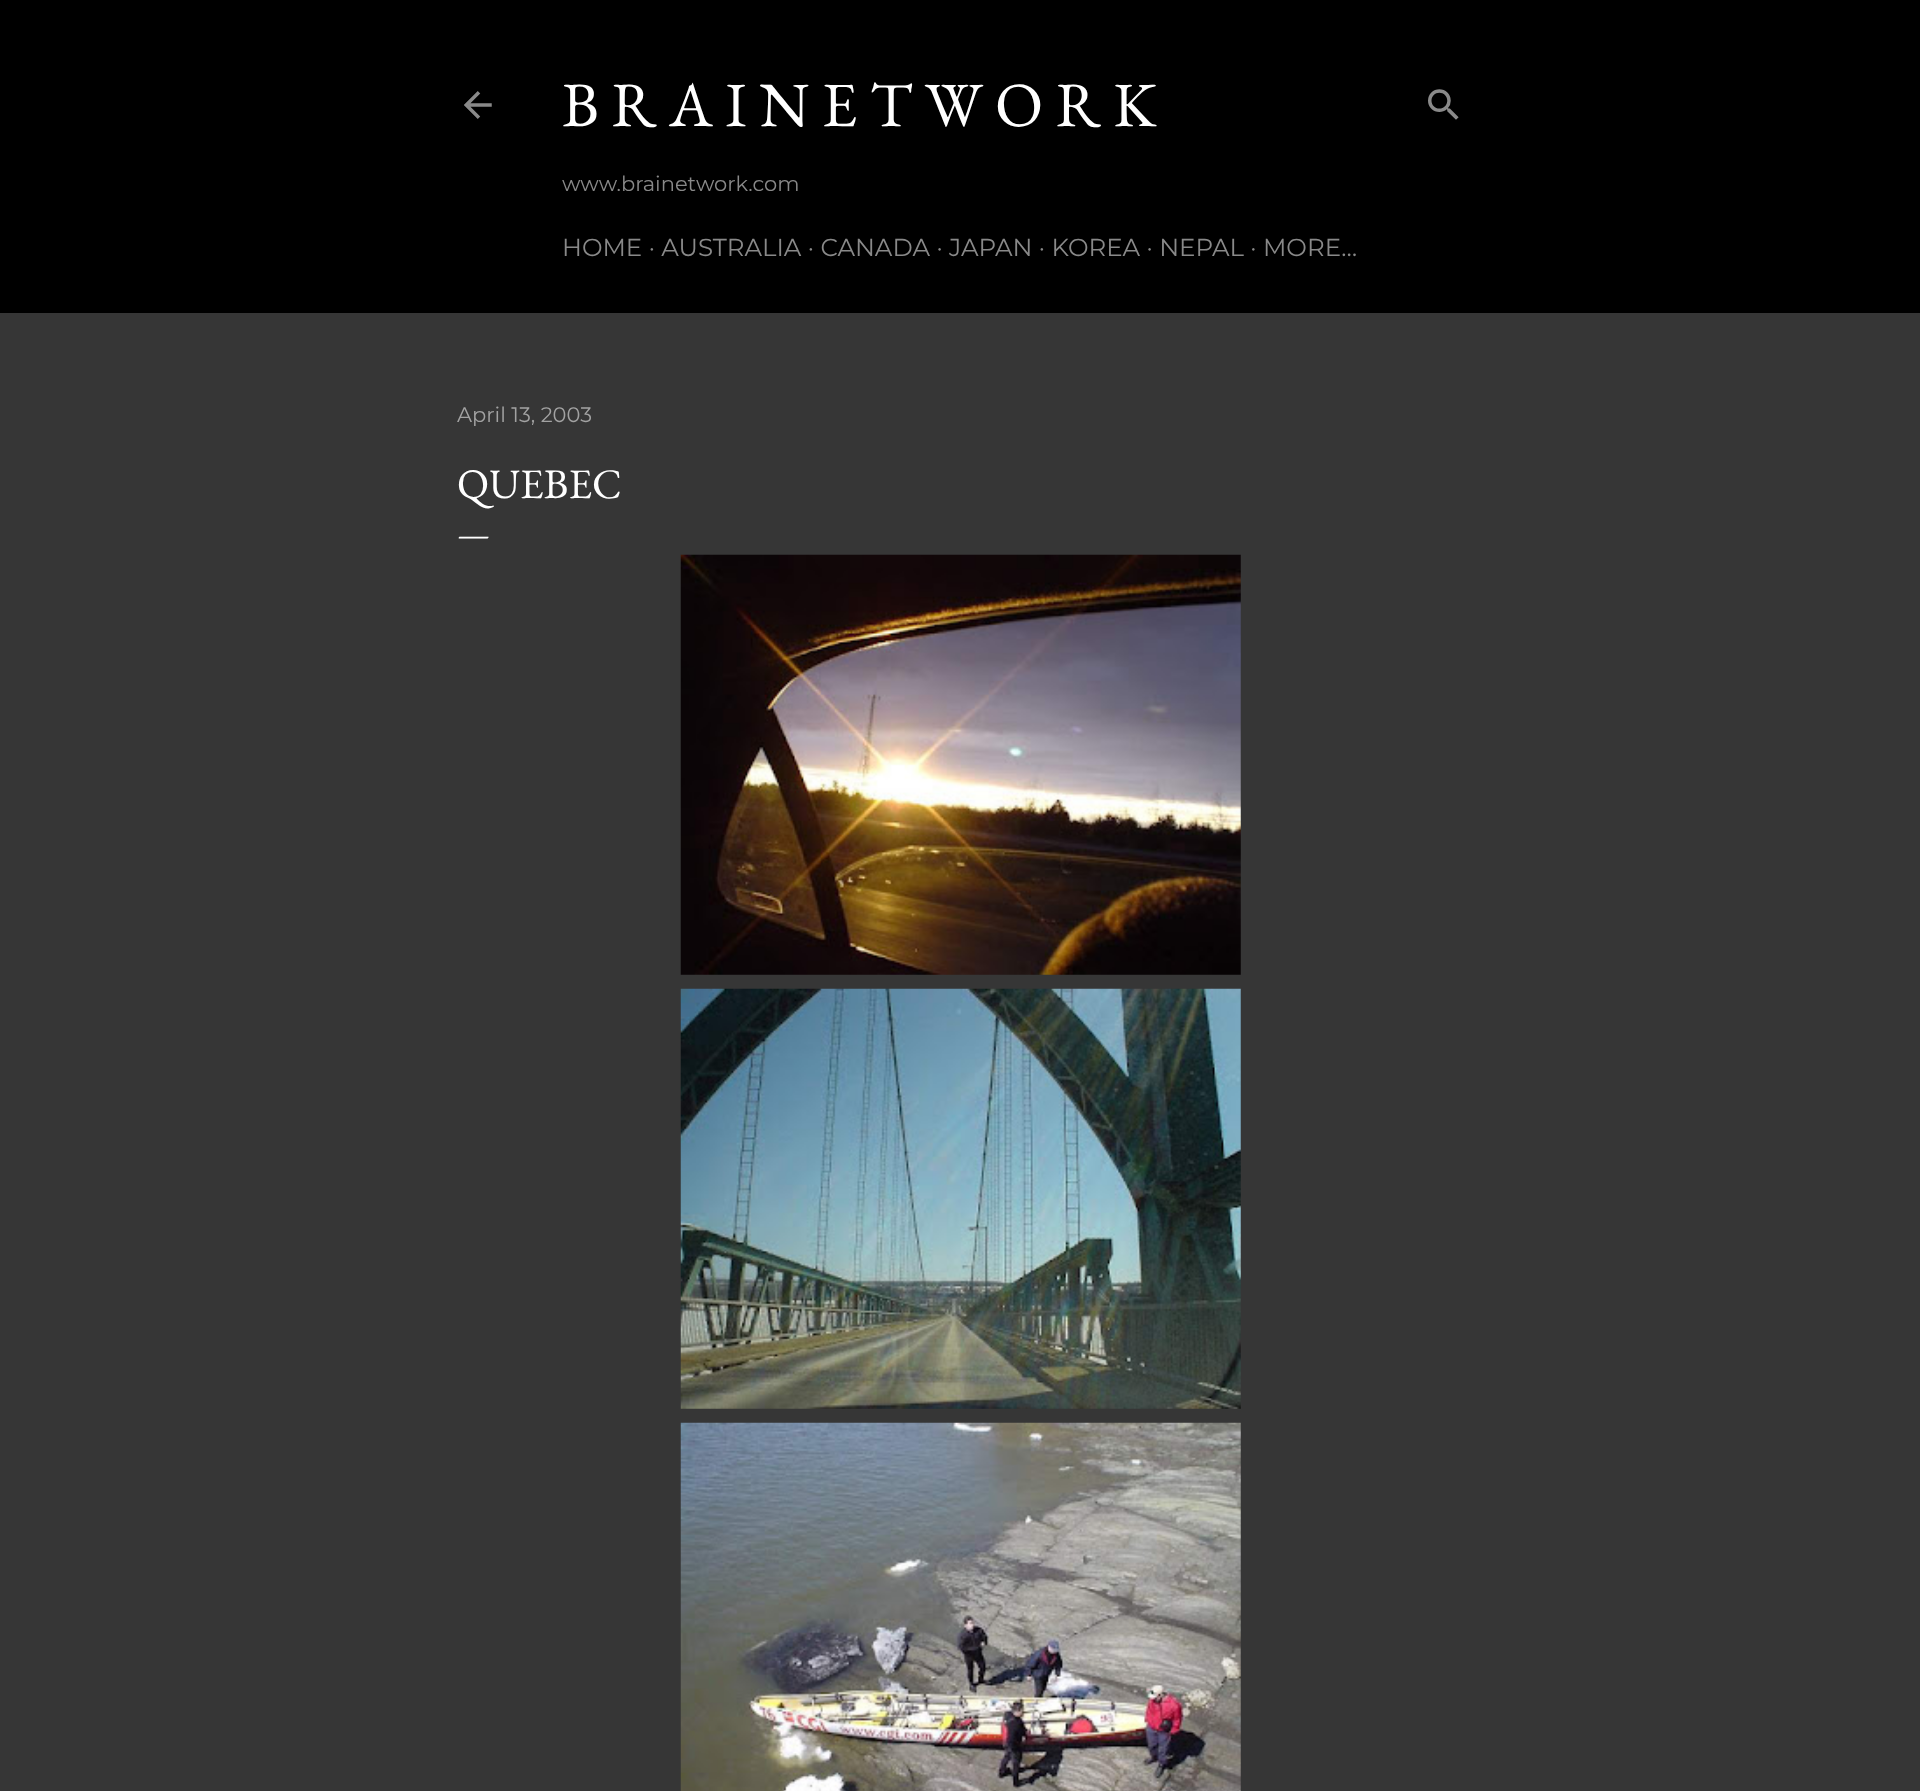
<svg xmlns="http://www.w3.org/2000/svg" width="1920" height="1791">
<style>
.a{font:63px EB Garamond;fill:#fff}
.b{font:21px Montserrat;fill:#898989}
.c{font:24.5px Montserrat;fill:#898989}
.d{font:21px Montserrat;fill:#a2a2a2}
.e{font:42px EB Garamond;fill:#fff}
.f{font:35px EB Garamond;fill:#fff}
</style>
<rect width="100%" height="100%" fill="#363636"/>
<path fill="#000" d="M0 0h1920v313H0z"/>
<image href="1.png" x="464" y="91" width="28" height="28"/>
<image href="2.png" x="1428" y="89" width="31" height="31"/>
<image href="3.png" x="680" y="554" width="561" height="421"/>
<image href="4.png" x="680" y="988" width="561" height="421"/>
<image href="5.png" x="680" y="1422" width="561" height="369"/>
<text class="a" x="562" y="126">B R A I N E T W O R K</text>
<text class="b" x="562" y="191">www.brainetwork.com</text>
<text class="c" x="562" y="256">HOME · AUSTRALIA · CANADA · JAPAN · KOREA · NEPAL · MORE…</text>
<text class="d" x="457" y="422">April 13, 2003</text>
<text class="e" x="457" y="498">QUEBEC</text>
<text class="f" x="457" y="545">—</text>
</svg>
